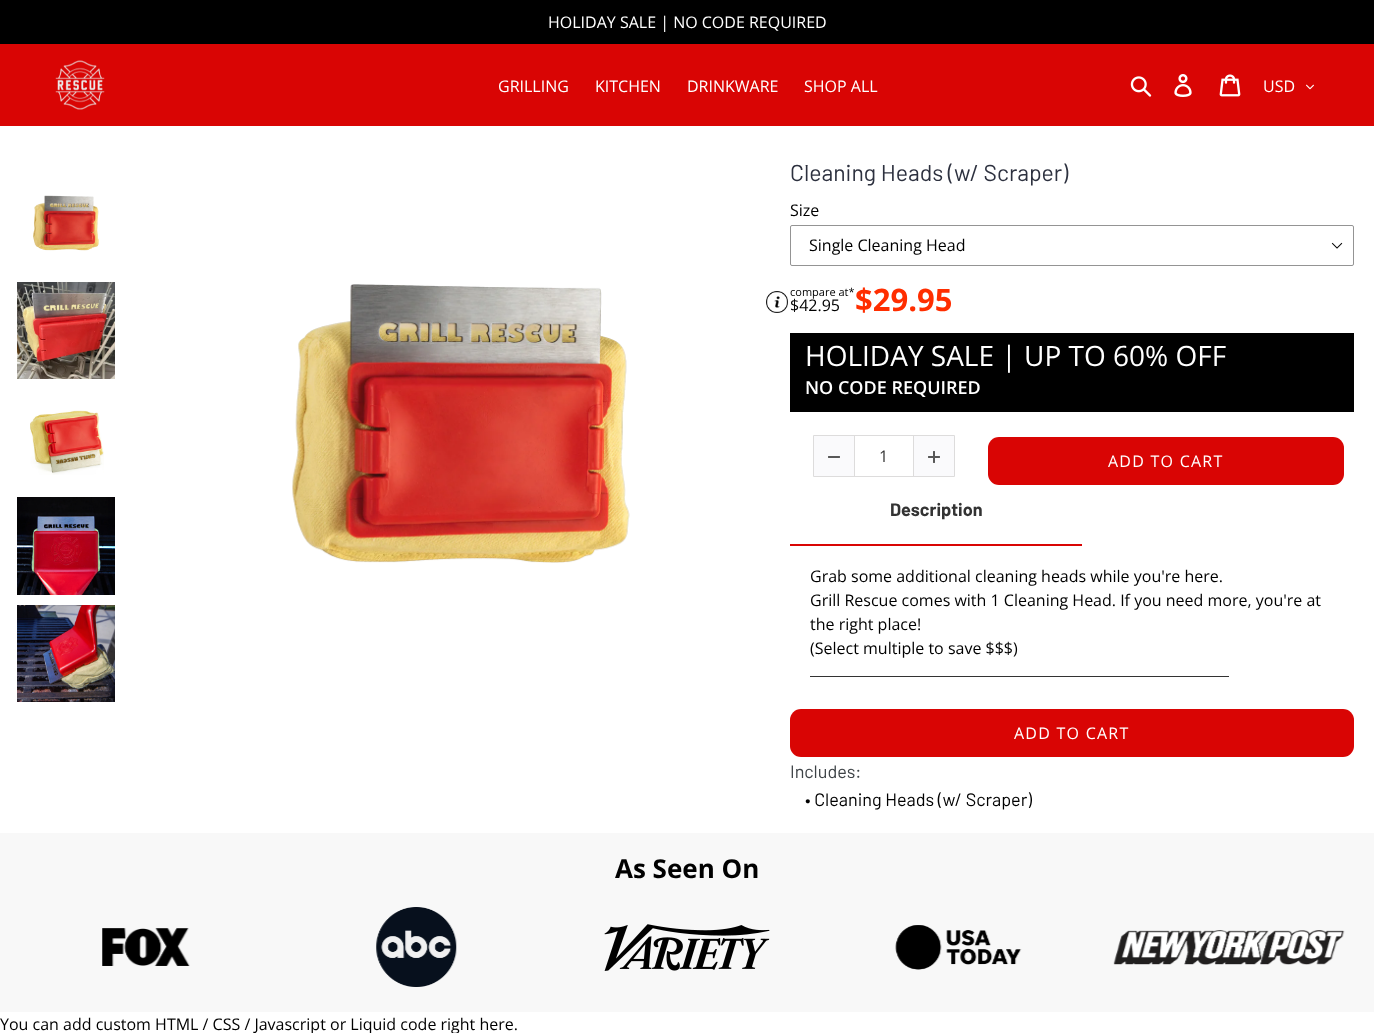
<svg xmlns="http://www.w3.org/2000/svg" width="1374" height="1033">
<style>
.a{font:16px Open Sans;fill:#fff}
.b{font:23px Barlow;fill:#2d313f}
.c{font:16px Open Sans;fill:#000}
.d{font:11px Open Sans;fill:#000}
.e{font:bold 31px Open Sans;fill:#ff2e00}
.f{font:28px Open Sans;fill:#fff}
.g{font:600 18px Open Sans;fill:#fff}
.h{font:16px Open Sans;fill:#333}
.i{font:16px Open Sans;letter-spacing:1.25px;fill:#fff}
.j{font:bold 18px Barlow;fill:#333}
.k{font:18px Barlow;fill:#3d4246}
.l{font:18px Barlow;fill:#000}
.m{font:bold 26px Open Sans;fill:#000}
</style>
<rect width="100%" height="100%" fill="#fff"/>
<path fill="#000" d="M0 0h1374v44H0z"/>
<path fill="#d90504" d="M0 44h1374v82H0z"/>
<image href="1.png" x="55" y="60" width="50" height="50"/>
<image href="2.png" x="1130" y="76" width="22" height="21"/>
<image href="3.png" x="1174" y="74" width="18" height="23"/>
<image href="4.png" x="1219" y="74" width="22" height="23"/>
<image href="5.png" x="1306" y="84" width="8" height="6"/>
<image href="6.png" x="33" y="195" width="66" height="56"/>
<image href="7.png" x="17" y="282" width="98" height="97"/>
<image href="8.png" x="30" y="410" width="74" height="65"/>
<image href="9.png" x="17" y="497" width="98" height="98"/>
<image href="10.png" x="17" y="605" width="98" height="97"/>
<image href="11.png" x="292" y="284" width="338" height="279"/>
<image href="12.png" x="1331" y="242" width="12" height="7"/>
<rect fill="none" stroke="#949494" x="790.5" y="225.5" width="563" height="40" rx="1.5"/>
<image href="13.png" x="766" y="291" width="22" height="22"/>
<path fill="#000" d="M790 333h564v79H790z"/>
<path fill="#dddcdc" d="M854 436h1v40H854z"/>
<path fill="#dddcdc" d="M913 436h1v40H913z"/>
<path fill="none" stroke="#dddcdc" d="M813.5 435.5h141v41H813.5z"/>
<path fill="#fafafc" d="M814 436h40v40H814z"/>
<image href="14.png" x="828" y="456" width="12" height="2"/>
<path fill="#fafafc" d="M914 436h40v40H914z"/>
<image href="15.png" x="928" y="451" width="12" height="12"/>
<rect fill="#d90504" x="988" y="437" width="356" height="48" rx="11"/>
<path fill="#d90504" d="M790 544h292v2H790z"/>
<path fill="#333" d="M810 676h419v1H810z"/>
<rect fill="#d90504" x="790" y="709" width="564" height="48" rx="11"/>
<path fill="#f8f8f8" d="M0 833h1374v179H0z"/>
<image href="16.png" x="102" y="928" width="88" height="38"/>
<image href="17.png" x="376" y="907" width="81" height="80"/>
<image href="18.png" x="604" y="924" width="166" height="47"/>
<image href="19.png" x="895" y="925" width="127" height="45"/>
<image href="20.png" x="1113" y="930" width="232" height="35"/>
<text class="a" x="548" y="28">HOLIDAY SALE | NO CODE REQUIRED</text>
<text class="a" x="498" y="92">GRILLING</text>
<text class="a" x="595" y="92">KITCHEN</text>
<text class="a" x="687" y="92">DRINKWARE</text>
<text class="a" x="804" y="92">SHOP ALL</text>
<text class="a" x="1263" y="92">USD</text>
<text class="b" x="790" y="181">Cleaning Heads (w/ Scraper)</text>
<text class="c" x="790" y="216">Size</text>
<text class="c" x="809" y="251">Single Cleaning Head</text>
<text class="d" x="790" y="296">compare at*</text>
<text class="c" x="790" y="311">$42.95</text>
<text class="e" x="855" y="311">$29.95</text>
<text class="f" x="805" y="366">HOLIDAY SALE | UP TO 60% OFF</text>
<text class="g" x="805" y="394">NO CODE REQUIRED</text>
<text class="h" x="879" y="462">1</text>
<text class="i" x="1108" y="467">ADD TO CART</text>
<text class="j" x="890" y="516">Description</text>
<text class="c" x="810" y="582">Grab some additional cleaning heads while you're here.</text>
<text class="c" x="810" y="606">Grill Rescue comes with 1 Cleaning Head. If you need more, you're at</text>
<text class="c" x="810" y="630">the right place!</text>
<text class="c" x="810" y="654">(Select multiple to save $$$)</text>
<text class="i" x="1014" y="739">ADD TO CART</text>
<text class="k" x="790" y="778">Includes:</text>
<text class="l" x="805" y="806">• Cleaning Heads (w/ Scraper)</text>
<text class="m" x="615" y="878">As Seen On</text>
<text class="c" x="0" y="1030">You can add custom HTML / CSS / Javascript or Liquid code right here.</text>
</svg>
